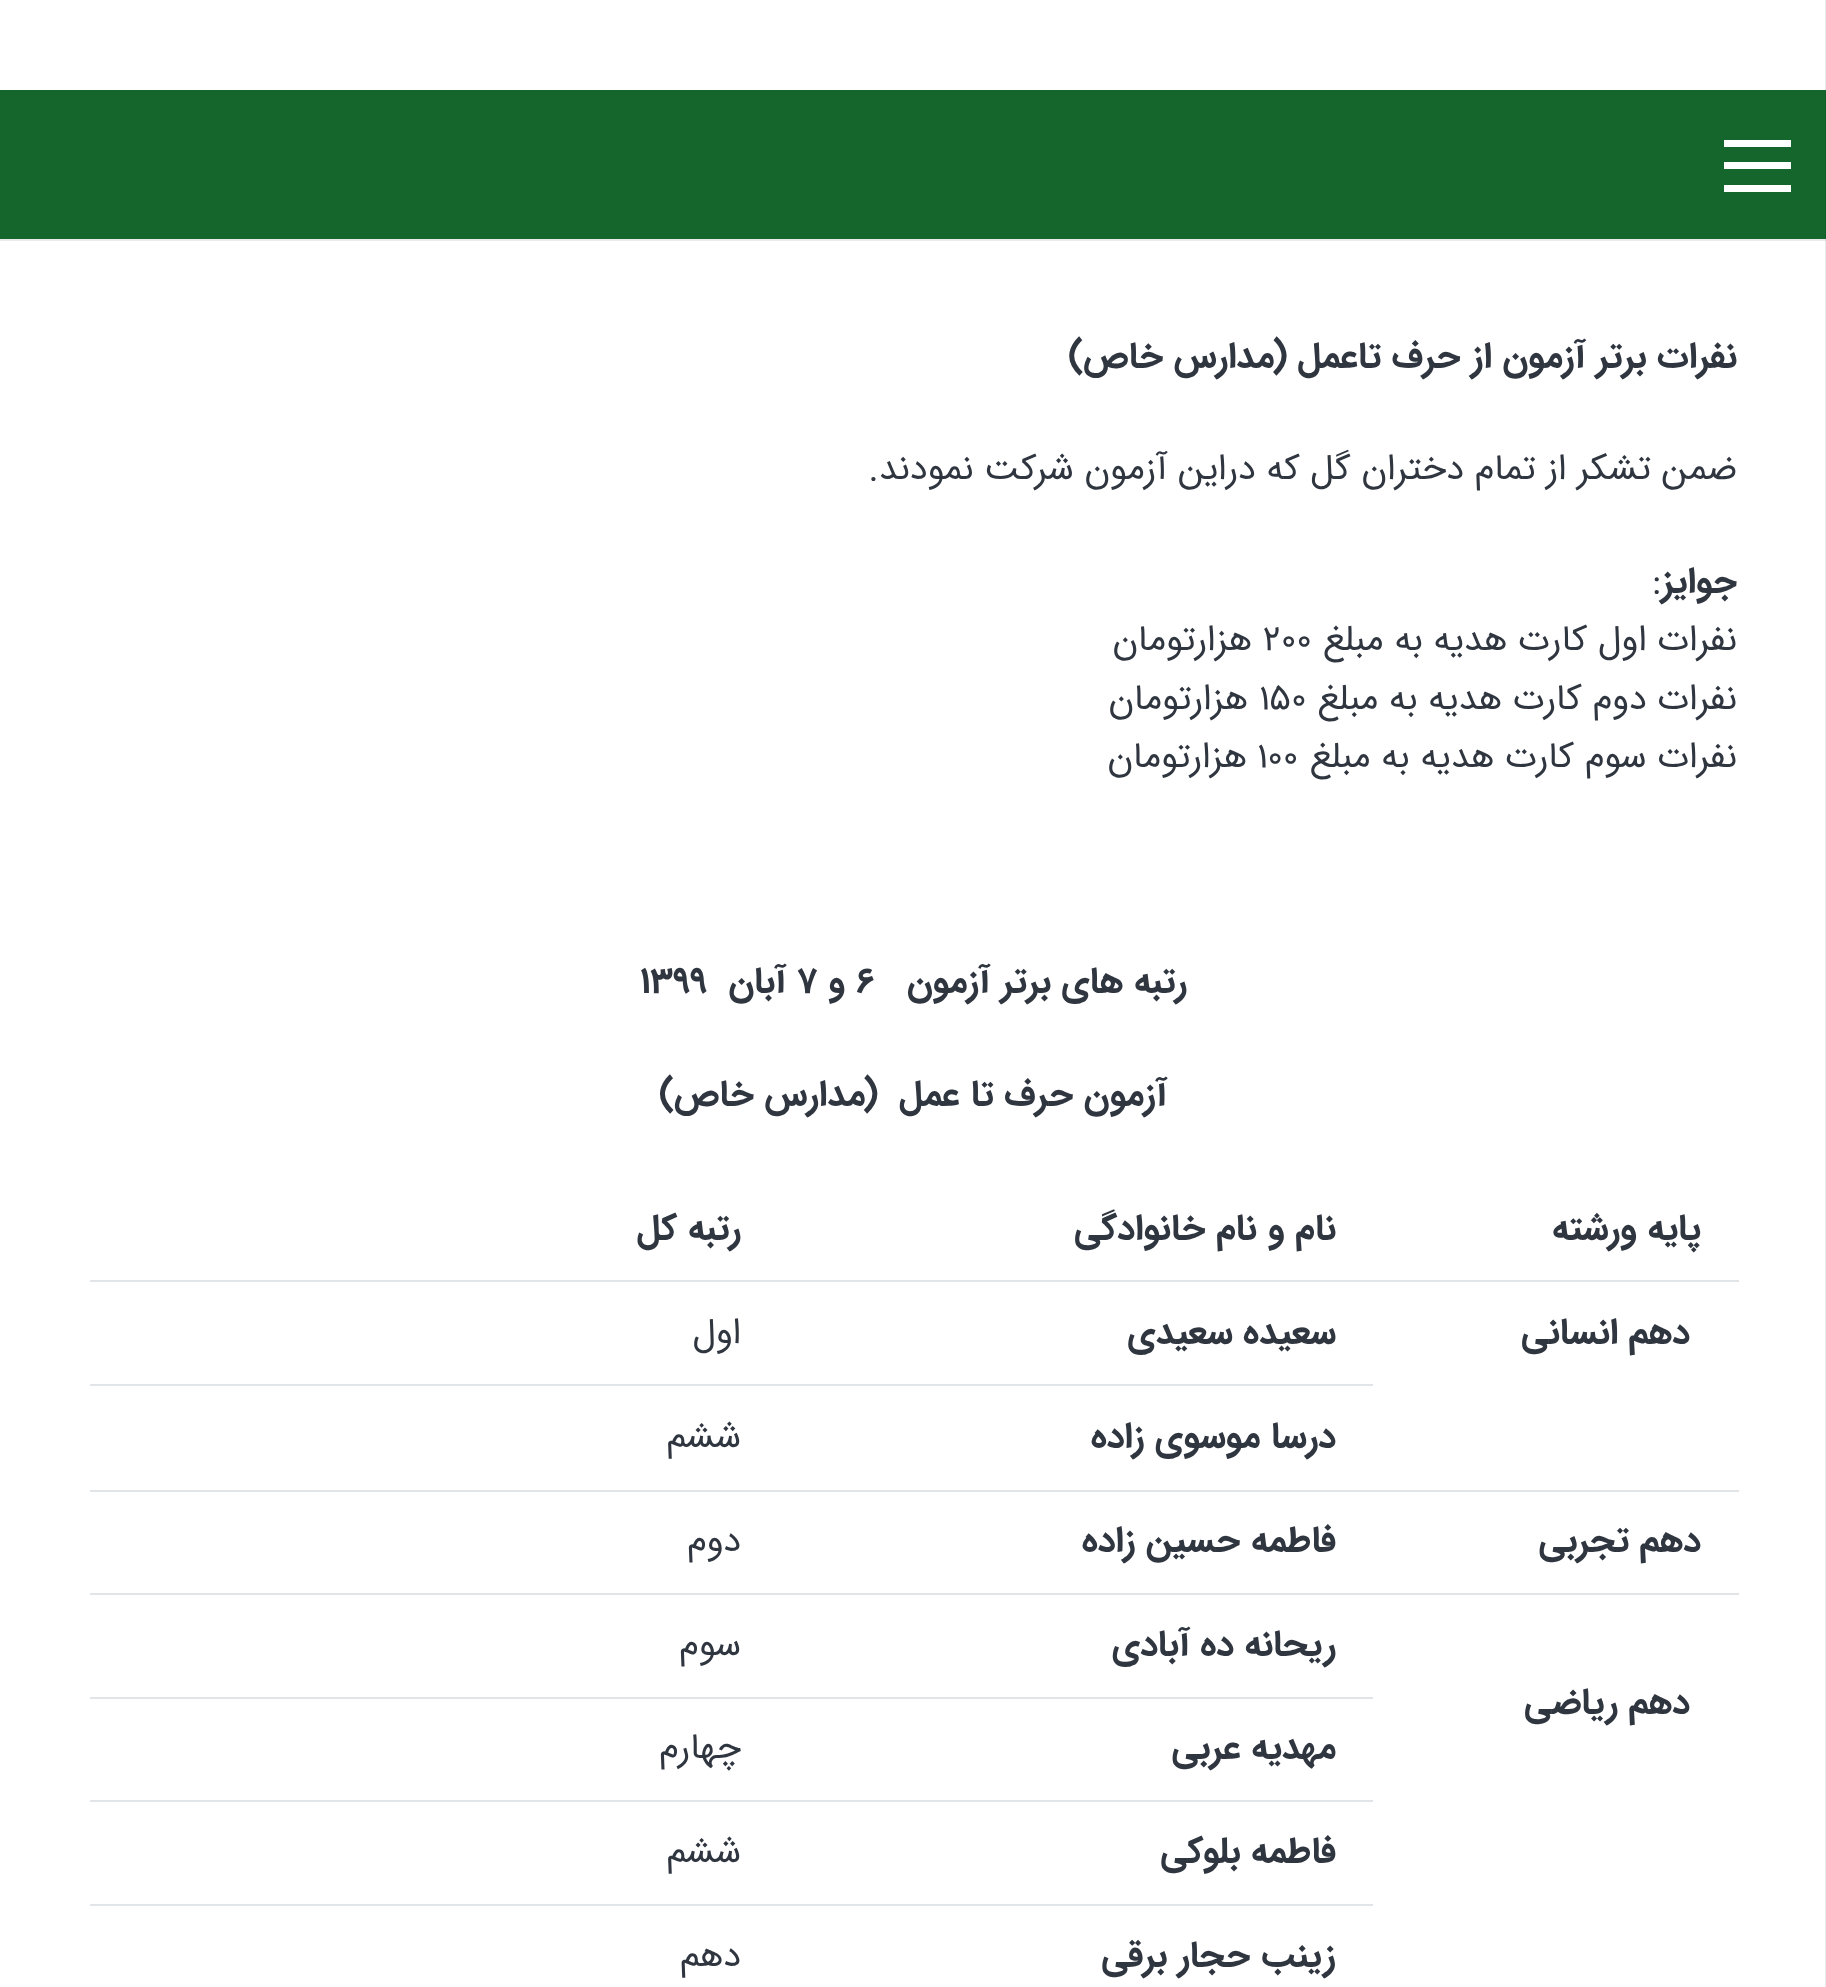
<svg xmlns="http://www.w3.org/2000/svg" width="1826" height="1987">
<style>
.a{font:bold 36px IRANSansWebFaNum;direction:rtl;fill:#303640}
.b{font:36px IRANSansWebFaNum;direction:rtl;fill:#303640}
.c{font:36px IRANSansWebFaNum;fill:#303640}
.d{font:bold 36px IRANSansWebFaNum;fill:#303640}
</style>
<rect width="100%" height="100%" fill="#fff"/>
<path fill="#ebebeb" d="M1825 0h1v1987H1825z"/>
<path fill="#ebebeb" d="M0 239h1826v2H0z"/>
<path fill="#d8d8d8" d="M1825 238h1v3H1825z"/>
<path fill="#14662c" d="M0 90h1825v149H0z"/>
<path fill="#125e28" d="M1825 90h1v149H1825z"/>
<path fill="#fff" d="M1724 162h67v7H1724z"/>
<path fill="#fff" d="M1724 140h67v7H1724z"/>
<path fill="#fff" d="M1724 185h67v7H1724z"/>
<path fill="#e1e5e8" d="M90 1280h1649v2H90z"/>
<path fill="#e1e5e8" d="M90 1384h1283v2H90z"/>
<path fill="#e1e5e8" d="M90 1490h1649v2H90z"/>
<path fill="#e1e5e8" d="M90 1593h1649v2H90z"/>
<path fill="#e1e5e8" d="M90 1697h1283v2H90z"/>
<path fill="#e1e5e8" d="M90 1800h1283v2H90z"/>
<path fill="#e1e5e8" d="M90 1904h1283v2H90z"/>
<text class="a" x="1737" y="367">نفرات برتر آزمون از حرف تاعمل (مدارس خاص)</text>
<text class="b" x="1737" y="479">ضمن تشکر از تمام دختران گل که دراین آزمون شرکت نمودند.</text>
<text class="a" x="1737" y="592">جوایز</text>
<text class="c" x="1652" y="592">:</text>
<text class="b" x="1737" y="650">نفرات اول کارت هدیه به مبلغ</text>
<text class="c" x="1263" y="650">200</text>
<text class="b" x="1252" y="650">هزارتومان</text>
<text class="b" x="1737" y="709">نفرات دوم کارت هدیه به مبلغ</text>
<text class="c" x="1259" y="709">150</text>
<text class="b" x="1248" y="709">هزارتومان</text>
<text class="b" x="1737" y="767">نفرات سوم کارت هدیه به مبلغ</text>
<text class="c" x="1257" y="767">100</text>
<text class="b" x="1247" y="767">هزارتومان</text>
<text class="a" x="1187" y="992">رتبه های برتر آزمون</text>
<text class="d" x="856" y="992">6</text>
<text class="a" x="845" y="992">و</text>
<text class="d" x="797" y="992">7</text>
<text class="a" x="786" y="992">آبان</text>
<text class="d" x="640" y="992">1399</text>
<text class="a" xml:space="preserve" x="1167" y="1105">آزمون حرف تا عمل  (مدارس خاص)</text>
<text class="a" x="1701" y="1239">پایه ورشته</text>
<text class="a" x="1336" y="1239">نام و نام خانوادگی</text>
<text class="a" x="741" y="1239">رتبه کل</text>
<text class="a" x="1690" y="1343">دهم انسانی</text>
<text class="a" x="1336" y="1343">سعیده سعیدی</text>
<text class="b" x="741" y="1343">اول</text>
<text class="a" x="1336" y="1447">درسا موسوی زاده</text>
<text class="b" x="741" y="1447">ششم</text>
<text class="a" x="1701" y="1551">دهم تجربی</text>
<text class="a" x="1336" y="1551">فاطمه حسین زاده</text>
<text class="b" x="741" y="1551">دوم</text>
<text class="a" x="1336" y="1655">ریحانه ده آبادی</text>
<text class="b" x="741" y="1655">سوم</text>
<text class="a" x="1690" y="1713">دهم ریاضی</text>
<text class="a" x="1336" y="1758">مهدیه عربی</text>
<text class="b" x="741" y="1758">چهارم</text>
<text class="a" x="1336" y="1862">فاطمه بلوکی</text>
<text class="b" x="741" y="1862">ششم</text>
<text class="a" x="1336" y="1966">زینب حجار برقی</text>
<text class="b" x="741" y="1966">دهم</text>
</svg>
